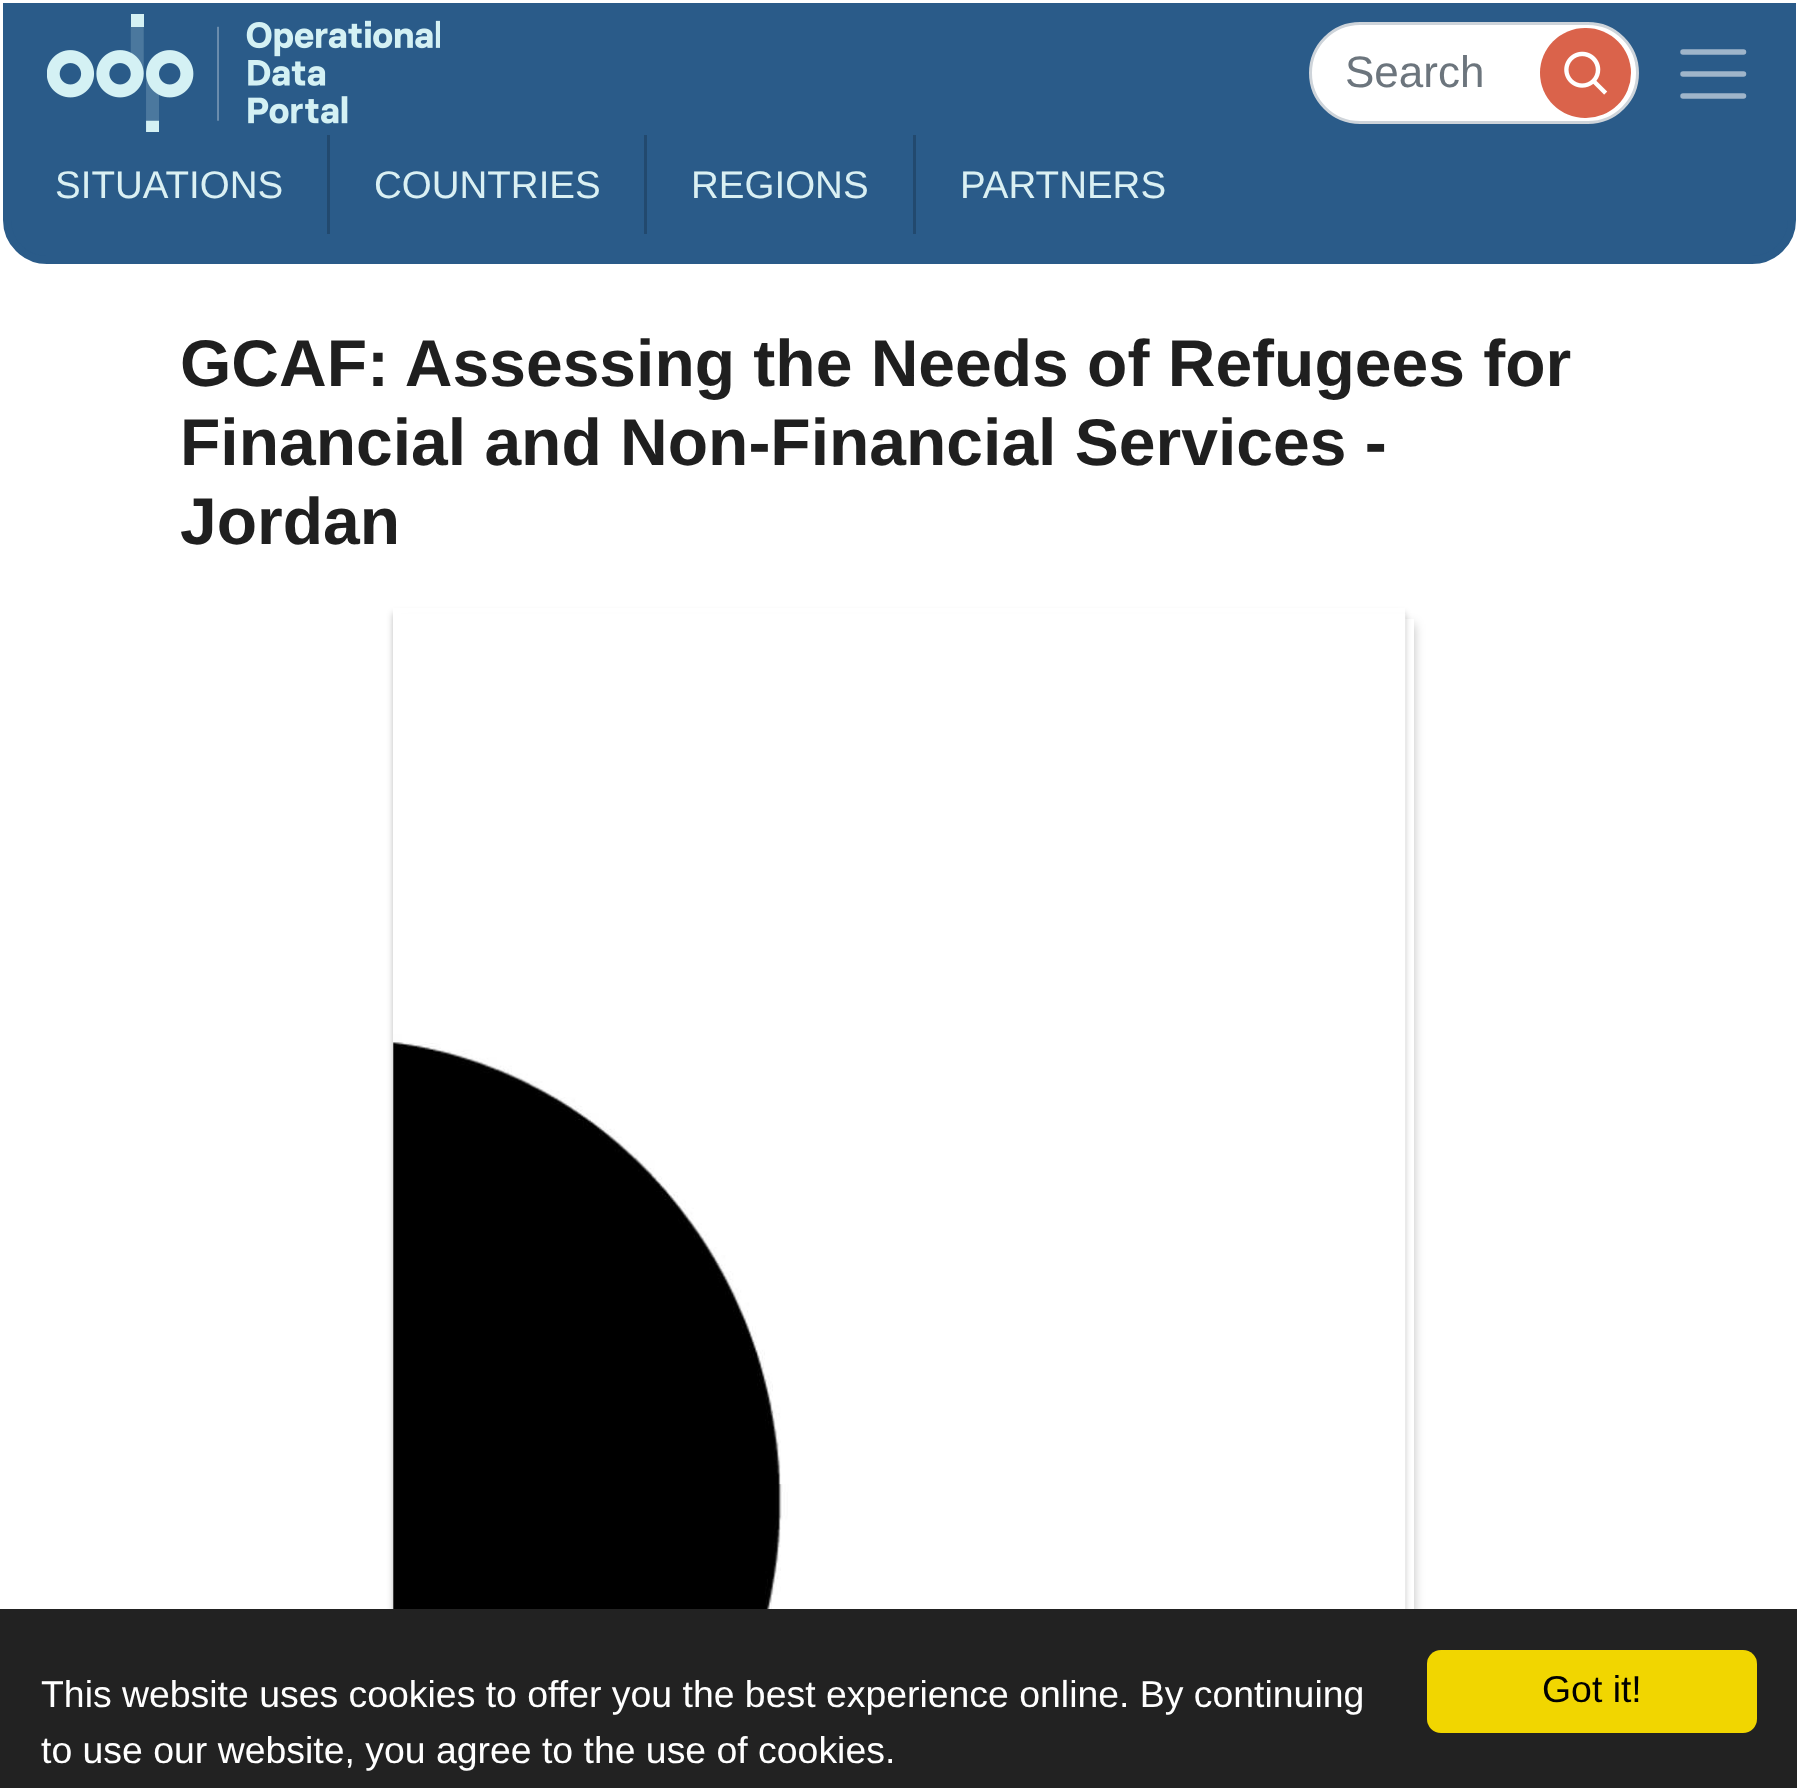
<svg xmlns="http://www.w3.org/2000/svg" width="1797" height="1788">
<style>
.a{font:44px Liberation Sans;fill:#6c757d}
.b{font:38.5px Liberation Sans;fill:#daf0f3}
.c{font:bold 66px Liberation Sans;fill:#1f1f1f}
.d{font:37.4px Liberation Sans;fill:#fff}
.e{font:37.4px Liberation Sans;fill:#000}
</style>
<defs>
<clipPath id="clip1"><path d="M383 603h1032v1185h-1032zm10 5h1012v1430h-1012z" clip-rule="evenodd"/></clipPath>
</defs>
<rect width="100%" height="100%" fill="#fff"/>
<path fill="#2a5b89" stroke="#2a5b89" stroke-width="8" d="M7 7h1785v213c0 22-18 40-40 40h-1705c-22 0-40-18-40-40z"/>
<image href="1.png" x="47" y="14" width="393" height="118"/>
<rect fill="#fff" stroke="#ced4da" stroke-width="3" x="1310.5" y="23.5" width="327" height="99" rx="49.5"/>
<rect fill="#da634b" x="1540" y="28" width="91" height="90" rx="45"/>
<image href="2.png" x="1564" y="51" width="44" height="44"/>
<path fill="none" stroke="#9fb5ca" stroke-width="5.5" stroke-linecap="round" d="M1683 52h60.5m-60.5 22h60.5m-60.5 22h60.5"/>
<path fill="#22496e" d="M327 135h3v99H327z"/>
<path fill="#22496e" d="M644 135h3v99H644z"/>
<path fill="#22496e" d="M913 135h3v99H913z"/>
<path fill="#00000040" filter="blur(5.5px)" d="M402 624h1012v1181H402z"/>
<path fill="#fff" d="M1405 619h9v990H1405z"/>
<g clip-path="url(#clip1)">
<path fill="#00000040" filter="blur(3px)" d="M393 613h1012v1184H393z"/>
</g>
<image href="3.png" x="393" y="614" width="1013" height="995"/>
<path fill="#222" d="M0 1609h1797v179H0z"/>
<rect fill="#f1d600" x="1427" y="1650" width="330" height="83" rx="14"/>
<text class="a" x="1345" y="87">Search</text>
<text class="b" x="55" y="198">SITUATIONS</text>
<text class="b" x="374" y="198">COUNTRIES</text>
<text class="b" x="691" y="198">REGIONS</text>
<text class="b" x="960" y="198">PARTNERS</text>
<text class="c" x="180" y="386">GCAF: Assessing the Needs of Refugees for</text>
<text class="c" x="180" y="465">Financial and Non-Financial Services -</text>
<text class="c" x="180" y="544">Jordan</text>
<text class="d" x="41" y="1707">This website uses cookies to offer you the best experience online. By continuing</text>
<text class="d" x="41" y="1763">to use our website, you agree to the use of cookies.</text>
<text class="e" x="1542" y="1702">Got it!</text>
</svg>
